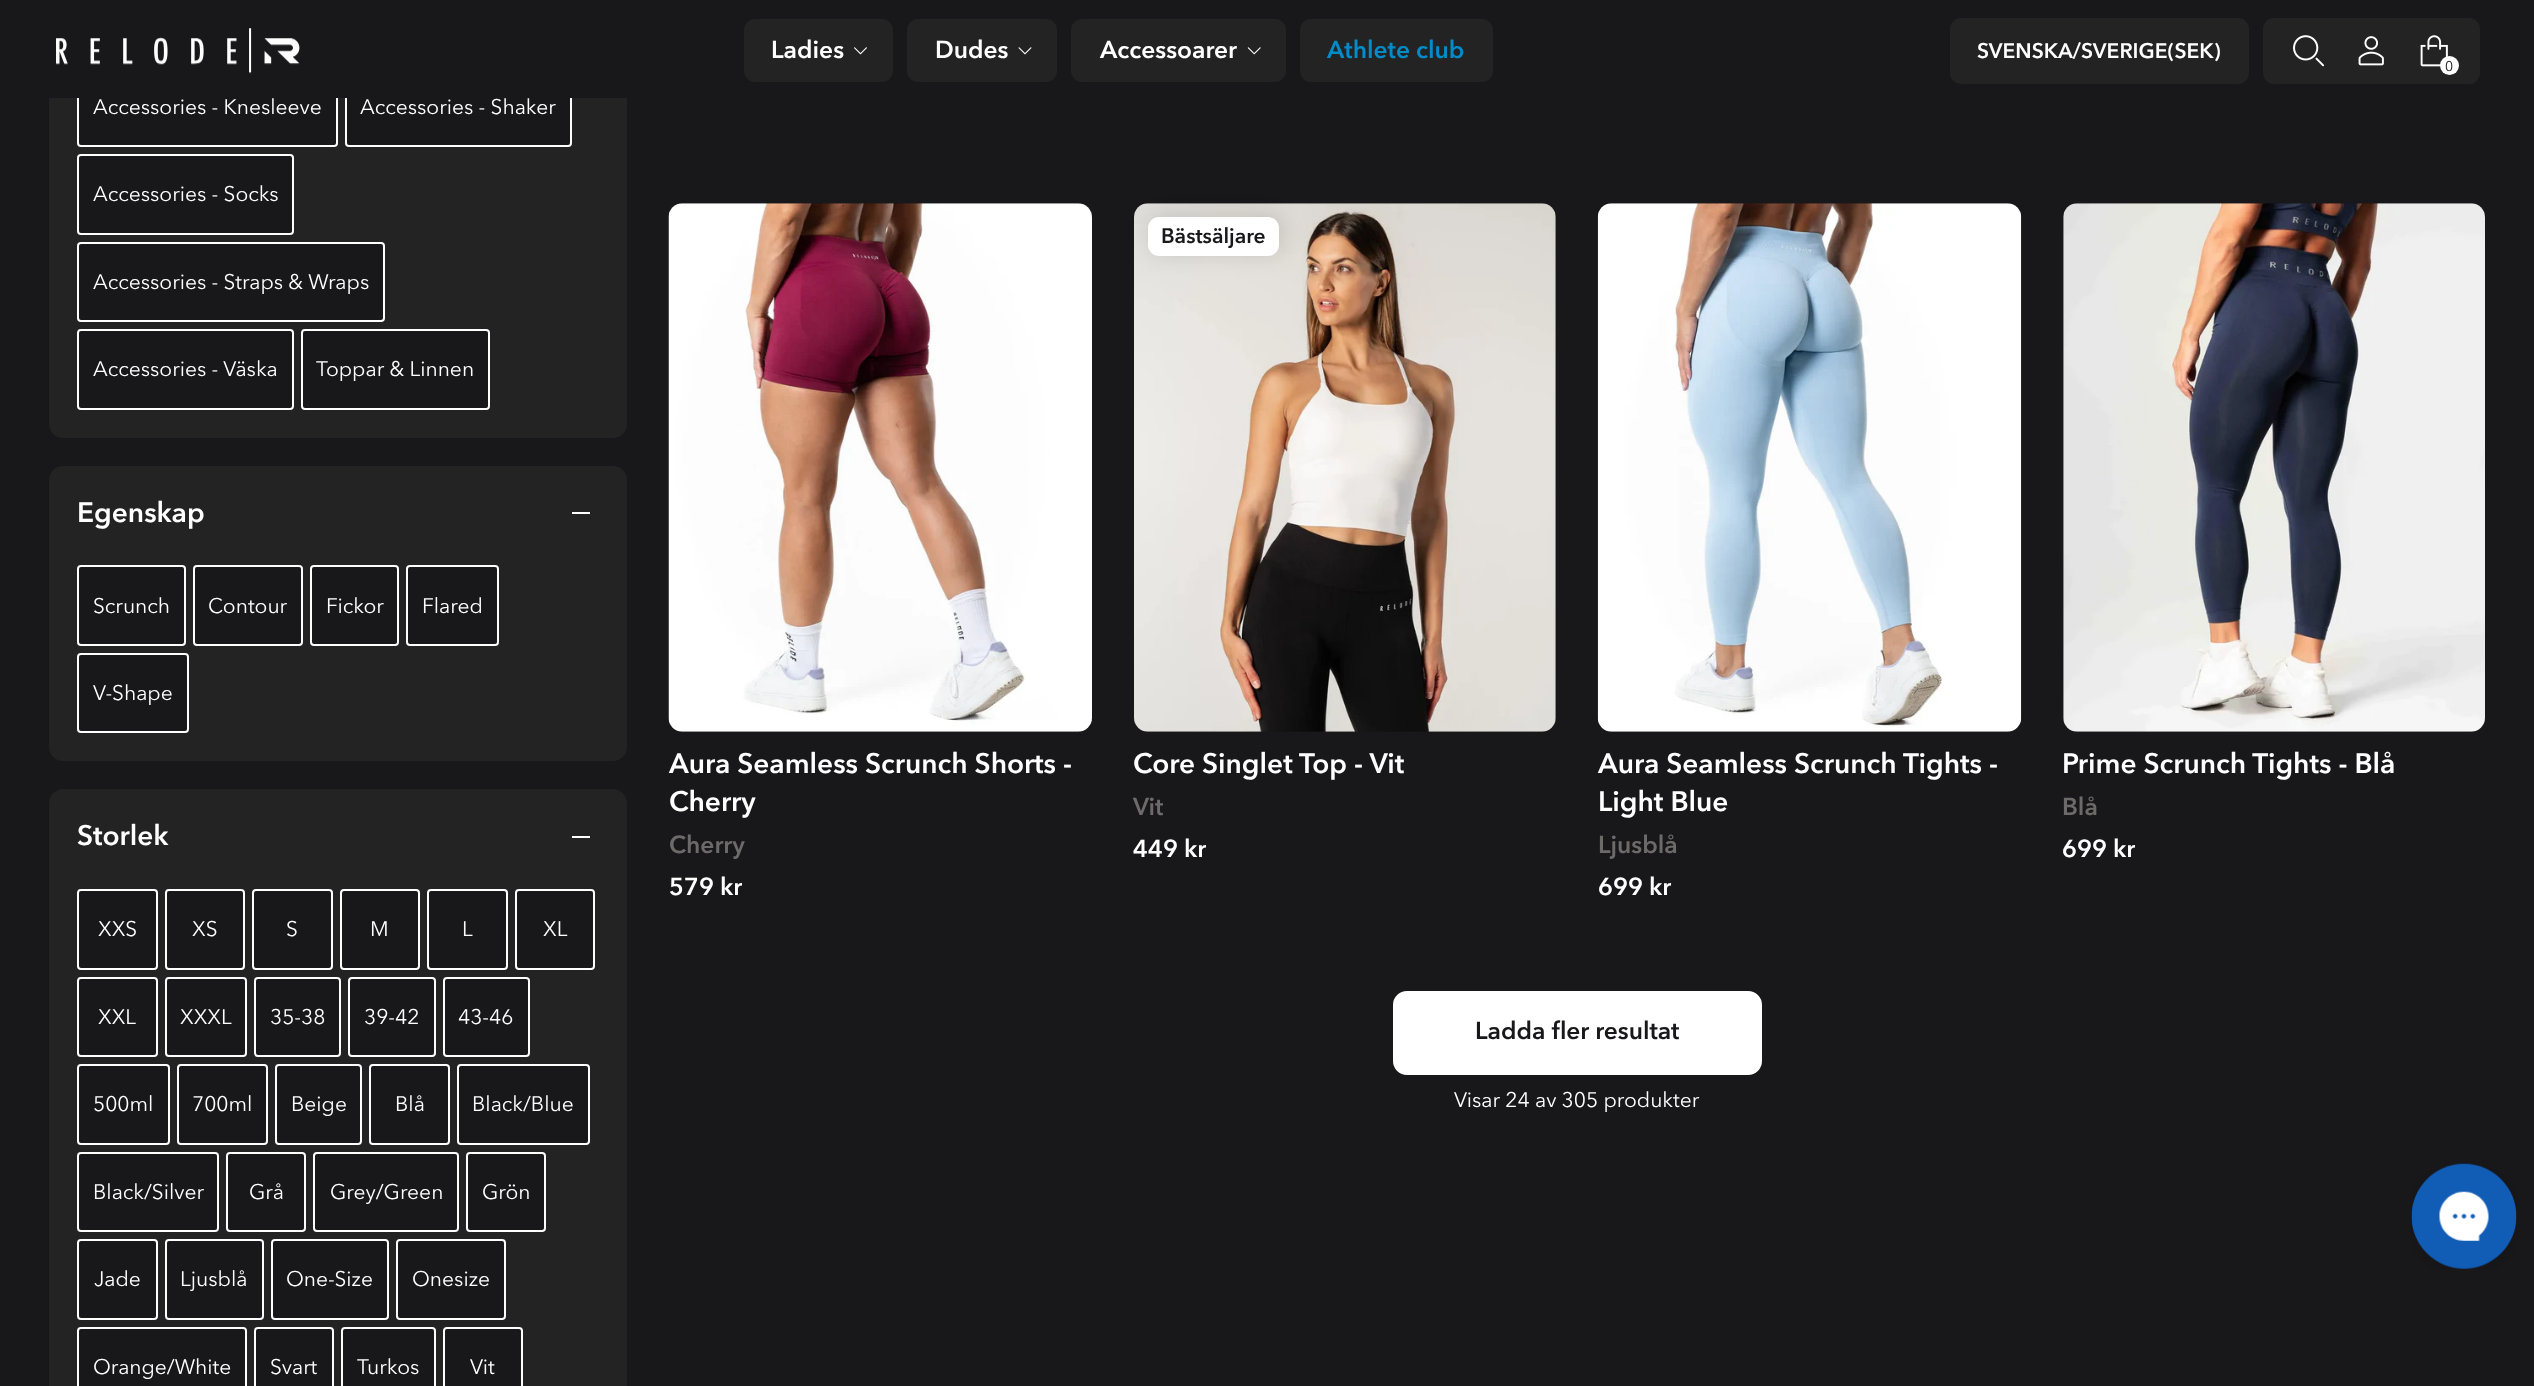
<svg xmlns="http://www.w3.org/2000/svg" width="2534" height="1386">
<style>
.a{font:600 24.5px Avenir Next;fill:#fff}
.b{font:600 24.5px Avenir Next;fill:#048bc9}
.c{font:600 21px Avenir Next;fill:#fff}
.d{font:14px Avenir Next;fill:#181719}
.e{font:21px Avenir Next;fill:#fff}
.f{font:600 28px Avenir Next;fill:#fff}
.g{font:600 24.5px Avenir Next;fill:#6d6b69}
.h{font:600 21px Avenir Next;fill:#181719}
.i{font:600 24.5px Avenir Next;fill:#181719}
</style>
<rect width="100%" height="100%" fill="#181719"/>
<rect fill="#232323" x="49" y="-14" width="578" height="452" rx="14"/>
<rect fill="#181719" stroke="#fff" stroke-width="2" x="78" y="68" width="259" height="78" rx="3"/>
<rect fill="#181719" stroke="#fff" stroke-width="2" x="346" y="68" width="225" height="78" rx="3"/>
<path fill="#181719" d="M49 0h578v98H49z"/>
<image href="1.png" x="56" y="28" width="244" height="46"/>
<rect fill="#232323" x="744" y="19" width="149" height="63" rx="11"/>
<image href="2.png" x="854" y="47" width="13" height="8"/>
<rect fill="#232323" x="907" y="19" width="150" height="63" rx="11"/>
<image href="3.png" x="1018" y="47" width="14" height="8"/>
<rect fill="#232323" x="1071" y="19" width="215" height="63" rx="11"/>
<image href="4.png" x="1247" y="47" width="14" height="8"/>
<rect fill="#232323" x="1300" y="19" width="193" height="63" rx="11"/>
<rect fill="#232323" x="1950" y="18" width="299" height="66" rx="11"/>
<rect fill="#232323" x="2263" y="18" width="217" height="66" rx="11"/>
<image href="5.png" x="2293" y="35" width="32" height="32"/>
<image href="6.png" x="2358" y="36" width="26" height="30"/>
<image href="7.png" x="2420" y="35" width="28" height="32"/>
<circle fill="#fff" cx="2449.5" cy="65.5" r="9.5"/>
<rect fill="#181719" stroke="#fff" stroke-width="2" x="78" y="155" width="215" height="79" rx="3"/>
<rect fill="#181719" stroke="#fff" stroke-width="2" x="78" y="243" width="306" height="78" rx="3"/>
<rect fill="#181719" stroke="#fff" stroke-width="2" x="78" y="330" width="215" height="79" rx="3"/>
<rect fill="#181719" stroke="#fff" stroke-width="2" x="302" y="330" width="187" height="79" rx="3"/>
<rect fill="#232323" x="49" y="466" width="578" height="295" rx="14"/>
<path fill="#fff" d="M572 512h18v2H572z"/>
<rect fill="#181719" stroke="#fff" stroke-width="2" x="78" y="566" width="107" height="79" rx="3"/>
<rect fill="#181719" stroke="#fff" stroke-width="2" x="194" y="566" width="108" height="79" rx="3"/>
<rect fill="#181719" stroke="#fff" stroke-width="2" x="311" y="566" width="87" height="79" rx="3"/>
<rect fill="#181719" stroke="#fff" stroke-width="2" x="407" y="566" width="91" height="79" rx="3"/>
<rect fill="#181719" stroke="#fff" stroke-width="2" x="78" y="654" width="110" height="78" rx="3"/>
<path fill="#232323" d="M63 789h550c7.5 0 14 6.5 14 14v583h-578v-583c0-7.5 6.5-14 14-14z"/>
<path fill="#fff" d="M572 836h18v2H572z"/>
<rect fill="#181719" stroke="#fff" stroke-width="2" x="78" y="890" width="79" height="79" rx="3"/>
<rect fill="#181719" stroke="#fff" stroke-width="2" x="166" y="890" width="78" height="79" rx="3"/>
<rect fill="#181719" stroke="#fff" stroke-width="2" x="253" y="890" width="79" height="79" rx="3"/>
<rect fill="#181719" stroke="#fff" stroke-width="2" x="341" y="890" width="78" height="79" rx="3"/>
<rect fill="#181719" stroke="#fff" stroke-width="2" x="428" y="890" width="79" height="79" rx="3"/>
<rect fill="#181719" stroke="#fff" stroke-width="2" x="516" y="890" width="78" height="79" rx="3"/>
<rect fill="#181719" stroke="#fff" stroke-width="2" x="78" y="978" width="79" height="78" rx="3"/>
<rect fill="#181719" stroke="#fff" stroke-width="2" x="166" y="978" width="80" height="78" rx="3"/>
<rect fill="#181719" stroke="#fff" stroke-width="2" x="255" y="978" width="85" height="78" rx="3"/>
<rect fill="#181719" stroke="#fff" stroke-width="2" x="349" y="978" width="86" height="78" rx="3"/>
<rect fill="#181719" stroke="#fff" stroke-width="2" x="444" y="978" width="85" height="78" rx="3"/>
<rect fill="#181719" stroke="#fff" stroke-width="2" x="78" y="1065" width="91" height="79" rx="3"/>
<rect fill="#181719" stroke="#fff" stroke-width="2" x="178" y="1065" width="89" height="79" rx="3"/>
<rect fill="#181719" stroke="#fff" stroke-width="2" x="276" y="1065" width="85" height="79" rx="3"/>
<rect fill="#181719" stroke="#fff" stroke-width="2" x="370" y="1065" width="79" height="79" rx="3"/>
<rect fill="#181719" stroke="#fff" stroke-width="2" x="458" y="1065" width="131" height="79" rx="3"/>
<rect fill="#181719" stroke="#fff" stroke-width="2" x="78" y="1153" width="140" height="78" rx="3"/>
<rect fill="#181719" stroke="#fff" stroke-width="2" x="227" y="1153" width="78" height="78" rx="3"/>
<rect fill="#181719" stroke="#fff" stroke-width="2" x="314" y="1153" width="144" height="78" rx="3"/>
<rect fill="#181719" stroke="#fff" stroke-width="2" x="467" y="1153" width="78" height="78" rx="3"/>
<rect fill="#181719" stroke="#fff" stroke-width="2" x="78" y="1240" width="79" height="79" rx="3"/>
<rect fill="#181719" stroke="#fff" stroke-width="2" x="166" y="1240" width="97" height="79" rx="3"/>
<rect fill="#181719" stroke="#fff" stroke-width="2" x="272" y="1240" width="116" height="79" rx="3"/>
<rect fill="#181719" stroke="#fff" stroke-width="2" x="397" y="1240" width="108" height="79" rx="3"/>
<path fill="#181719" d="M81 1327h162c2 0 4 2 4 4v55h-170v-55c0-2 2-4 4-4z"/>
<rect fill="none" stroke="#fff" stroke-width="2" x="78" y="1328" width="168" height="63" rx="3"/>
<path fill="#181719" d="M258 1327h72c2 0 4 2 4 4v55h-80v-55c0-2 2-4 4-4z"/>
<rect fill="none" stroke="#fff" stroke-width="2" x="255" y="1328" width="78" height="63" rx="3"/>
<path fill="#181719" d="M345 1327h87c2 0 4 2 4 4v55h-95v-55c0-2 2-4 4-4z"/>
<rect fill="none" stroke="#fff" stroke-width="2" x="342" y="1328" width="93" height="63" rx="3"/>
<path fill="#181719" d="M447 1327h72c2 0 4 2 4 4v55h-80v-55c0-2 2-4 4-4z"/>
<rect fill="none" stroke="#fff" stroke-width="2" x="444" y="1328" width="78" height="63" rx="3"/>
<image href="8.png" x="668" y="203" width="424" height="529"/>
<image href="9.png" x="1134" y="203" width="422" height="529"/>
<rect fill="#0000001f" filter="blur(10.5px)" x="1150" y="215" width="131" height="39" rx="11"/>
<rect fill="#fff" x="1148" y="217" width="131" height="39" rx="11"/>
<image href="10.png" x="1597" y="203" width="425" height="529"/>
<image href="11.png" x="2063" y="203" width="422" height="529"/>
<rect fill="#fff" stroke="#fff" stroke-width="2" x="1394" y="992" width="367" height="82" rx="13"/>
<image href="12.png" x="2411" y="1163" width="106" height="106"/>
<text class="a" x="771" y="58">Ladies</text>
<text class="a" x="935" y="58">Dudes</text>
<text class="a" x="1100" y="58">Accessoarer</text>
<text class="b" x="1327" y="58">Athlete club</text>
<text class="c" x="1977" y="58">SVENSKA/SVERIGE(SEK)</text>
<text class="d" x="2445" y="71">0</text>
<text class="e" x="93" y="114">Accessories - Knesleeve</text>
<text class="e" x="360" y="114">Accessories - Shaker</text>
<text class="e" x="93" y="201">Accessories - Socks</text>
<text class="e" x="93" y="289">Accessories - Straps &amp; Wraps</text>
<text class="e" x="93" y="376">Accessories - Väska</text>
<text class="e" x="316" y="376">Toppar &amp; Linnen</text>
<text class="f" x="77" y="522">Egenskap</text>
<text class="e" x="93" y="613">Scrunch</text>
<text class="e" x="208" y="613">Contour</text>
<text class="e" x="326" y="613">Fickor</text>
<text class="e" x="422" y="613">Flared</text>
<text class="e" x="93" y="700">V-Shape</text>
<text class="f" x="77" y="845">Storlek</text>
<text class="e" x="98" y="936">XXS</text>
<text class="e" x="192" y="936">XS</text>
<text class="e" x="286" y="936">S</text>
<text class="e" x="370" y="936">M</text>
<text class="e" x="462" y="936">L</text>
<text class="e" x="543" y="936">XL</text>
<text class="e" x="98" y="1024">XXL</text>
<text class="e" x="180" y="1024">XXXL</text>
<text class="e" x="270" y="1024">35-38</text>
<text class="e" x="364" y="1024">39-42</text>
<text class="e" x="458" y="1024">43-46</text>
<text class="e" x="93" y="1111">500ml</text>
<text class="e" x="192" y="1111">700ml</text>
<text class="e" x="291" y="1111">Beige</text>
<text class="e" x="395" y="1111">Blå</text>
<text class="e" x="472" y="1111">Black/Blue</text>
<text class="e" x="93" y="1199">Black/Silver</text>
<text class="e" x="249" y="1199">Grå</text>
<text class="e" x="330" y="1199">Grey/Green</text>
<text class="e" x="482" y="1199">Grön</text>
<text class="e" x="94" y="1286">Jade</text>
<text class="e" x="180" y="1286">Ljusblå</text>
<text class="e" x="286" y="1286">One-Size</text>
<text class="e" x="412" y="1286">Onesize</text>
<text class="e" x="93" y="1374">Orange/White</text>
<text class="e" x="270" y="1374">Svart</text>
<text class="e" x="357" y="1374">Turkos</text>
<text class="e" x="470" y="1374">Vit</text>
<text class="f" x="669" y="773">Aura Seamless Scrunch Shorts -</text>
<text class="f" x="669" y="811">Cherry</text>
<text class="g" x="669" y="853">Cherry</text>
<text class="a" x="669" y="895">579 kr</text>
<text class="h" x="1161" y="243">Bästsäljare</text>
<text class="f" x="1133" y="773">Core Singlet Top - Vit</text>
<text class="g" x="1133" y="815">Vit</text>
<text class="a" x="1133" y="857">449 kr</text>
<text class="f" x="1598" y="773">Aura Seamless Scrunch Tights -</text>
<text class="f" x="1598" y="811">Light Blue</text>
<text class="g" x="1598" y="853">Ljusblå</text>
<text class="a" x="1598" y="895">699 kr</text>
<text class="f" x="2062" y="773">Prime Scrunch Tights - Blå</text>
<text class="g" x="2062" y="815">Blå</text>
<text class="a" x="2062" y="857">699 kr</text>
<text class="i" x="1475" y="1039">Ladda fler resultat</text>
<text class="e" x="1454" y="1107">Visar 24 av 305 produkter</text>
</svg>
